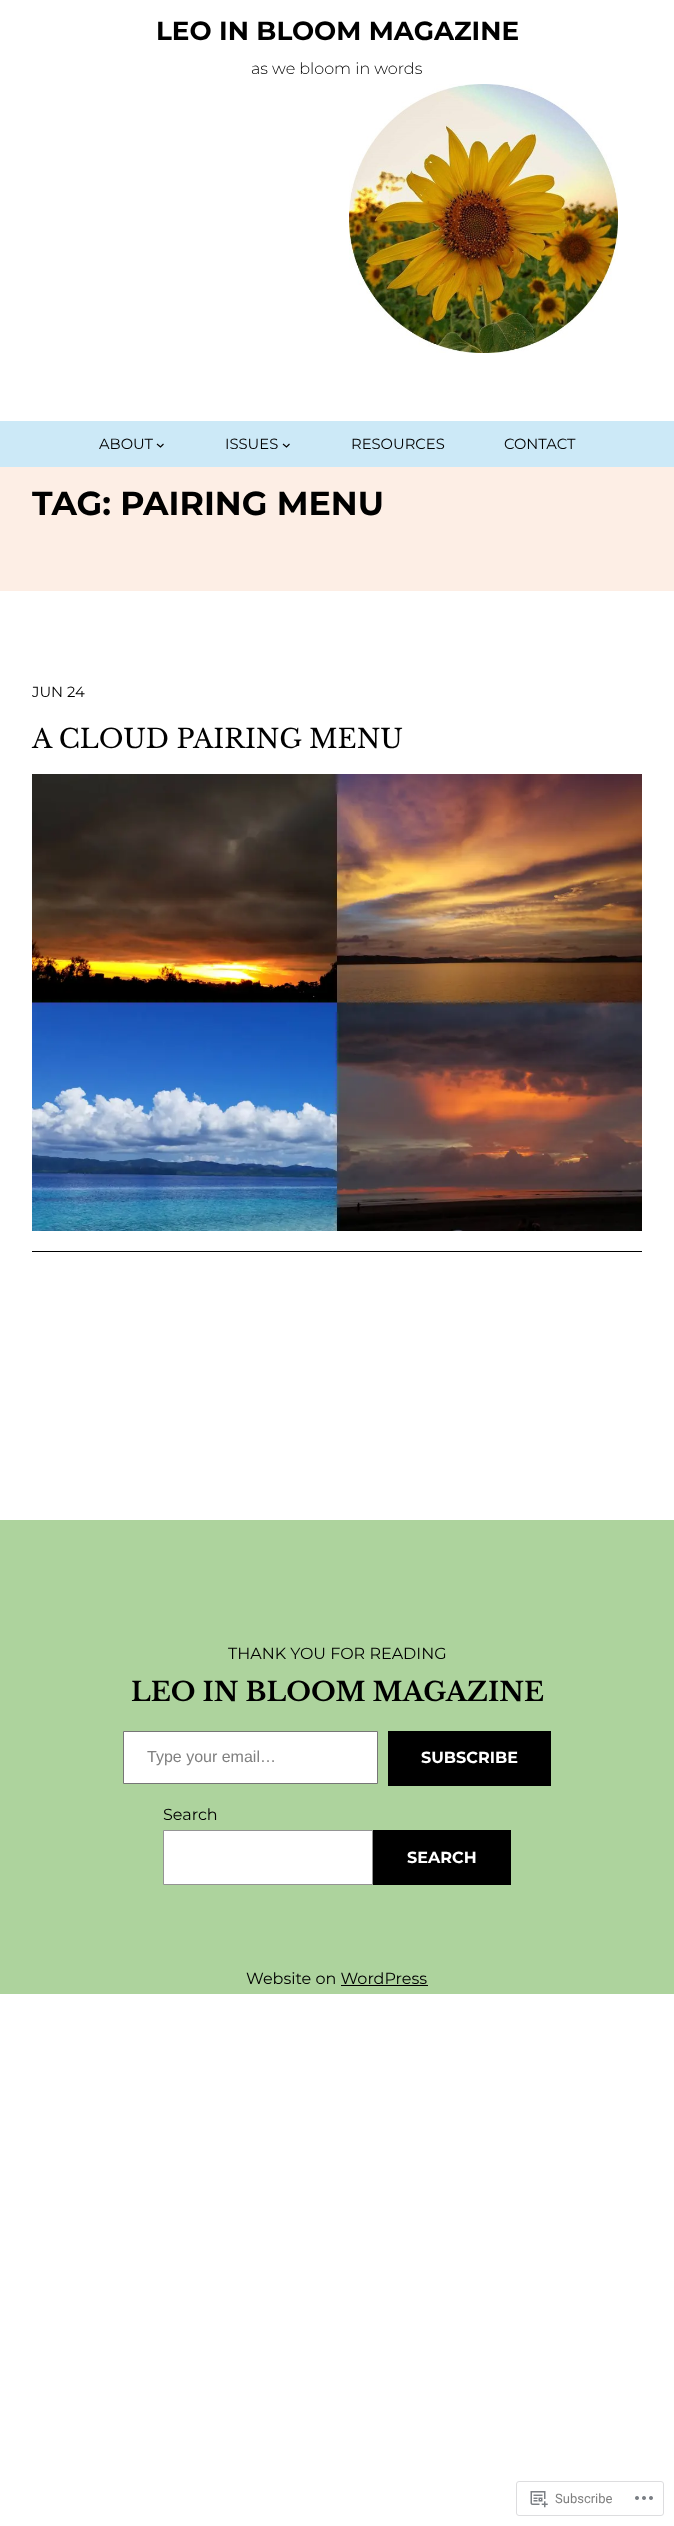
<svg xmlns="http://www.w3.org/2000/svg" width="674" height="2526">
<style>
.a{font:bold 26.25px Montserrat;fill:#000}
.b{font:300 16px Montserrat;fill:#000}
.c{font:100 14.75px Montserrat;fill:#000}
.d{font:bold 33.25px Montserrat;fill:#000}
.e{font:26.25px Libre Baskerville;fill:#000}
.f{font:100 16px Montserrat;fill:#000}
.g{font:bold 26.25px Libre Baskerville;fill:#000}
.h{font:16px Liberation Sans;fill:#808080}
.i{font:bold 16px Montserrat;fill:#fff}
.j{font:13px Roboto;fill:#808080}
</style>
<rect width="100%" height="100%" fill="#fff"/>
<path fill="#fdeee5" d="M0 467h674v124H0z"/>
<image href="1.png" x="349" y="84" width="269" height="269"/>
<path fill="#cce9f7" d="M0 421h674v46H0z"/>
<path fill="none" stroke="#000" stroke-width="1.1" d="M157 444l3.5 3l3-3"/>
<path fill="none" stroke="#000" stroke-width="1.1" d="M283 444l3.5 3l3-3"/>
<path fill="#000" d="M32 1251h610v1H32z"/>
<image href="2.png" x="32" y="774" width="610" height="457"/>
<path fill="#add39d" d="M0 1520h674v474H0z"/>
<path fill="#fff" stroke="#767676" d="M123.5 1731.5h254v52H123.5z"/>
<path fill="#000" d="M388 1731h163v55H388z"/>
<path fill="#fff" stroke="#949494" d="M163.5 1830.5h209v54H163.5z"/>
<path fill="#000" d="M373 1830h138v55H373z"/>
<path fill="#000" d="M341 1985h87v1H341z"/>
<rect fill="none" stroke="#dddddf" x="516.5" y="2481.5" width="147" height="34" rx="2.5"/>
<image href="3.png" x="530" y="2491" width="18" height="17"/>
<image href="4.png" x="635" y="2496" width="18" height="4"/>
<text class="a" x="156" y="40">LEO IN BLOOM MAGAZINE</text>
<text class="b" x="251" y="74">as we bloom in words</text>
<text class="c" x="99" y="449">ABOUT</text>
<text class="c" x="225" y="449">ISSUES</text>
<text class="c" x="351" y="449">RESOURCES</text>
<text class="c" x="504" y="449">CONTACT</text>
<text class="d" x="32" y="515">TAG: PAIRING MENU</text>
<text class="c" x="32" y="697">JUN 24</text>
<text class="e" x="32" y="748">A CLOUD PAIRING MENU</text>
<text class="f" x="228" y="1659">THANK YOU FOR READING</text>
<text class="g" x="131" y="1701">LEO IN BLOOM MAGAZINE</text>
<text class="h" x="147" y="1762">Type your email…</text>
<text class="i" x="421" y="1763">SUBSCRIBE</text>
<text class="f" x="163" y="1820">Search</text>
<text class="i" x="407" y="1863">SEARCH</text>
<text class="f" x="246" y="1984">Website on WordPress</text>
<text class="j" x="555" y="2503">Subscribe</text>
</svg>
